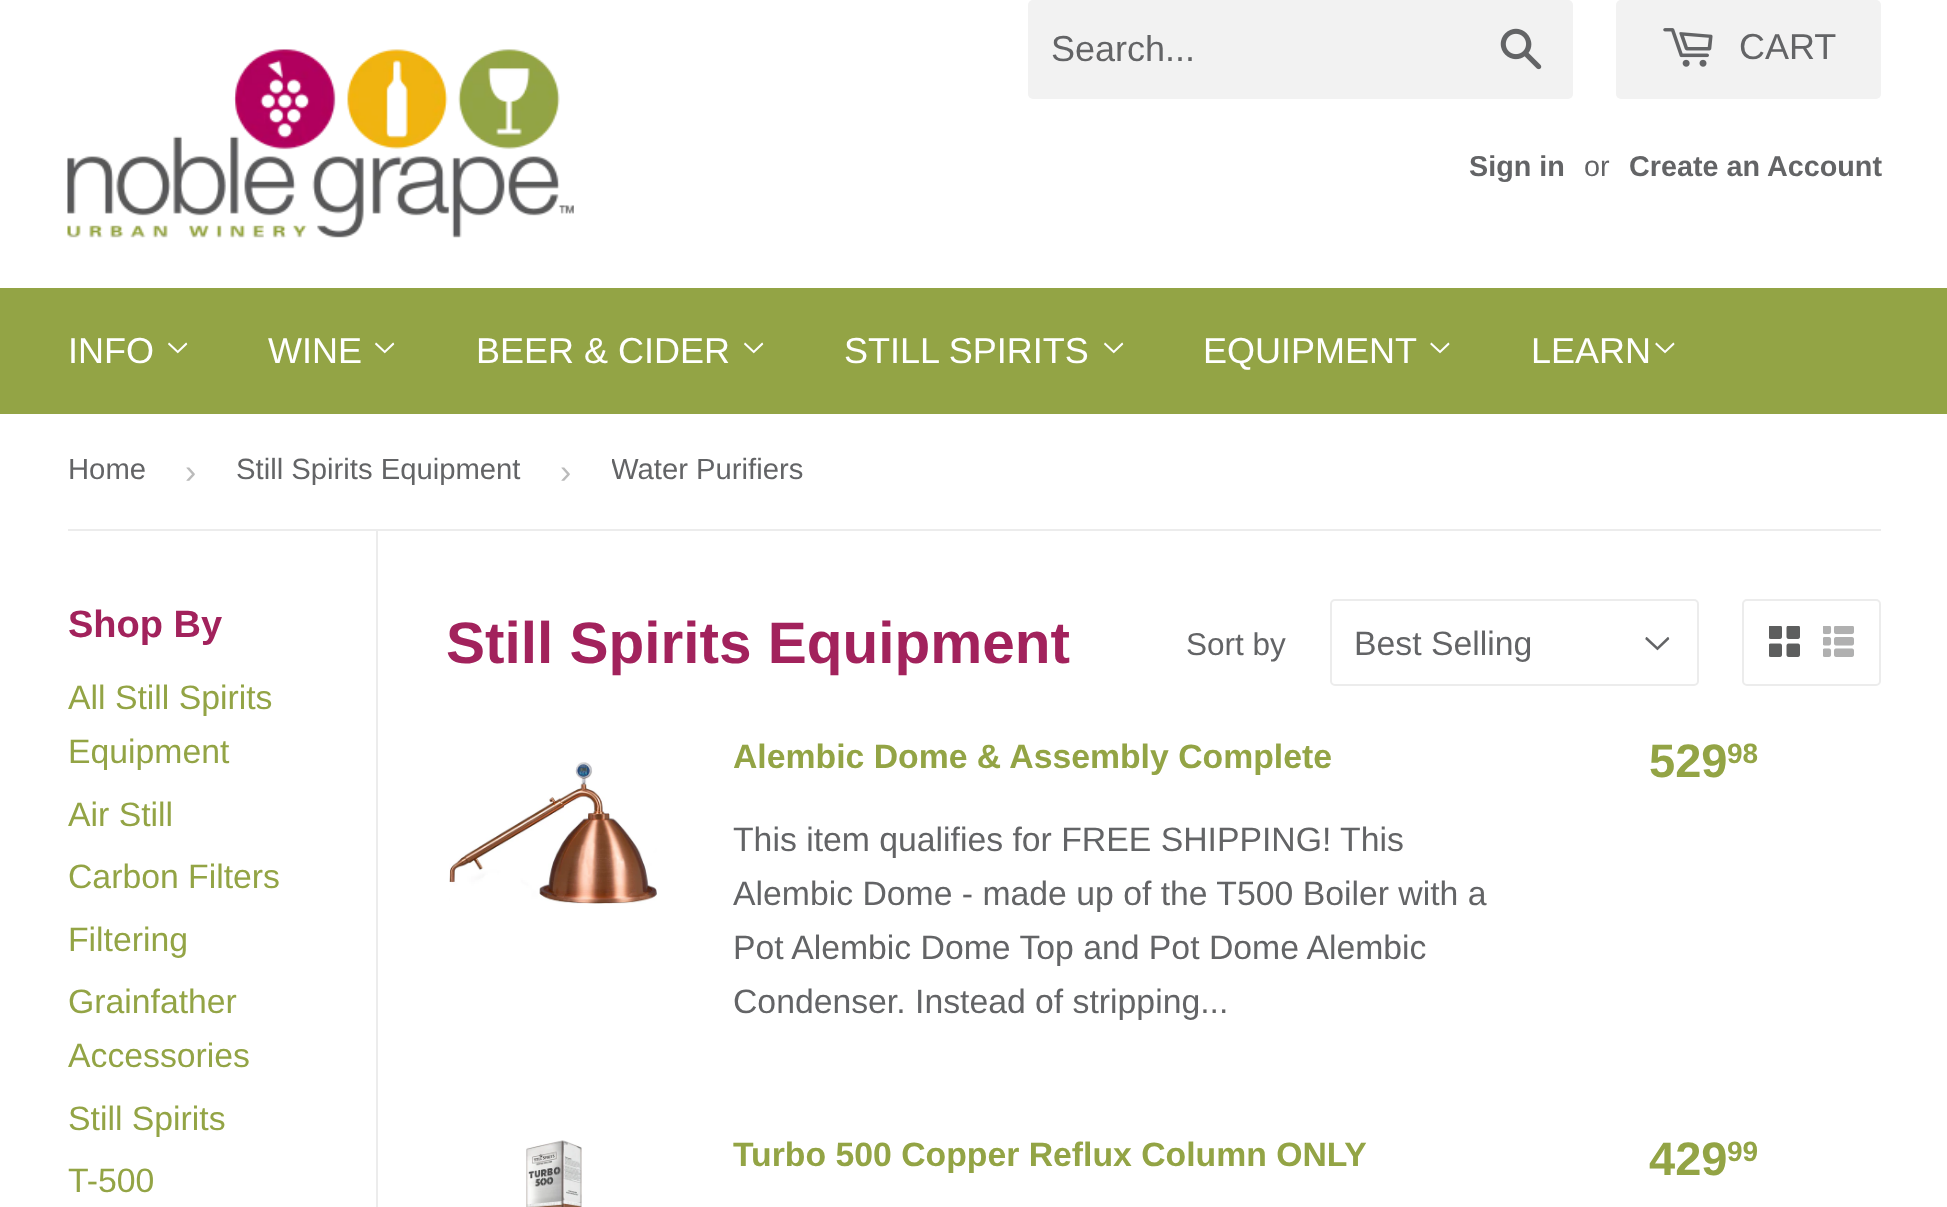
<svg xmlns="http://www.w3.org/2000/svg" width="1947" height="1207">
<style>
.a{font:36px Liberation Sans;fill:#636466}
.b{font:bold 28.75px Liberation Sans;fill:#636466}
.c{font:28.75px Liberation Sans;fill:#636466}
.d{font:36px Liberation Sans;fill:#fff}
.e{font:29.25px Liberation Sans;fill:#636466}
.f{font:33.75px Liberation Sans;fill:#bbb}
.g{font:bold 38px Liberation Sans;fill:#a2225c}
.h{font:33.75px Liberation Sans;fill:#93a445}
.i{font:bold 58.5px Liberation Sans;fill:#a2225c}
.j{font:31.5px Liberation Sans;fill:#636466}
.k{font:33.75px Liberation Sans;fill:#636466}
.l{font:bold 33.75px Liberation Sans;fill:#93a445}
.m{font:bold 47px Liberation Sans;fill:#93a445}
.n{font:bold 28px Liberation Sans;fill:#93a445}
</style>
<defs>
<clipPath id="clip1"><path d="M612 414h207v115H612z"/></clipPath>
</defs>
<rect width="100%" height="100%" fill="#fff"/>
<image href="1.png" x="67" y="49" width="507" height="189"/>
<rect fill="#f2f2f2" x="1028" width="545" height="99" rx="5"/>
<image href="2.png" x="1500" y="28" width="42" height="42"/>
<rect fill="#f2f2f2" x="1616" width="265" height="99" rx="5"/>
<image href="3.png" x="1663" y="28" width="50" height="39"/>
<path fill="#93a445" d="M0 288h1947v126H0z"/>
<image href="4.png" x="168" y="342" width="20" height="12"/>
<image href="4.png" x="375" y="342" width="20" height="12"/>
<image href="4.png" x="744" y="342" width="20" height="12"/>
<image href="4.png" x="1104" y="342" width="20" height="12"/>
<image href="5.png" x="1430" y="342" width="20" height="12"/>
<image href="5.png" x="1655" y="342" width="20" height="12"/>
<path fill="#ececec" d="M68 529h1813v2H68z"/>
<path fill="#ececec" d="M376 531h2v676H376z"/>
<image href="6.png" x="1645" y="637" width="25" height="14"/>
<rect fill="none" stroke="#ececec" stroke-width="2" x="1331" y="600" width="367" height="85" rx="4"/>
<rect fill="none" stroke="#ececec" stroke-width="2" x="1743" y="600" width="137" height="85" rx="4"/>
<image href="7.png" x="1769" y="626" width="31" height="31"/>
<image href="8.png" x="1823" y="626" width="31" height="31"/>
<image href="9.png" x="449" y="762" width="208" height="142"/>
<image href="10.png" x="526" y="1140" width="56" height="67"/>
<text class="a" x="1051" y="61">Search...</text>
<text class="a" x="1739" y="59">CART</text>
<text class="b" x="1469" y="176">Sign in</text>
<text class="c" x="1584" y="176">or</text>
<text class="b" x="1629" y="176">Create an Account</text>
<text class="d" x="68" y="363">INFO</text>
<text class="d" x="268" y="363">WINE</text>
<text class="d" x="476" y="363">BEER &amp; CIDER</text>
<text class="d" x="844" y="363">STILL SPIRITS</text>
<text class="d" x="1203" y="363">EQUIPMENT</text>
<text class="d" x="1531" y="363">LEARN</text>
<text class="e" x="68" y="479">Home</text>
<text class="f" x="185" y="483">›</text>
<text class="e" x="236" y="479">Still Spirits Equipment</text>
<text class="f" x="560" y="483">›</text>
<g clip-path="url(#clip1)">
<text class="e" x="611" y="479">Water Purifiers</text>
</g>
<text class="g" x="68" y="637">Shop By</text>
<text class="h" x="68" y="709">All Still Spirits</text>
<text class="h" x="68" y="763">Equipment</text>
<text class="h" x="68" y="826">Air Still</text>
<text class="h" x="68" y="888">Carbon Filters</text>
<text class="h" x="68" y="951">Filtering</text>
<text class="h" x="68" y="1013">Grainfather</text>
<text class="h" x="68" y="1067">Accessories</text>
<text class="h" x="68" y="1130">Still Spirits</text>
<text class="h" x="68" y="1192">T-500</text>
<text class="i" x="446" y="663">Still Spirits Equipment</text>
<text class="j" x="1186" y="655">Sort by</text>
<text class="k" x="1354" y="655">Best Selling</text>
<text class="l" x="733" y="768">Alembic Dome &amp; Assembly Complete</text>
<text class="k" x="733" y="851">This item qualifies for FREE SHIPPING! This</text>
<text class="k" x="733" y="905">Alembic Dome - made up of the T500 Boiler with a</text>
<text class="k" x="733" y="959">Pot Alembic Dome Top and Pot Dome Alembic</text>
<text class="k" x="733" y="1013">Condenser. Instead of stripping...</text>
<text class="m" x="1649" y="777">529</text>
<text class="n" x="1727" y="763">98</text>
<text class="l" x="733" y="1166">Turbo 500 Copper Reflux Column ONLY</text>
<text class="m" x="1649" y="1175">429</text>
<text class="n" x="1727" y="1161">99</text>
</svg>
